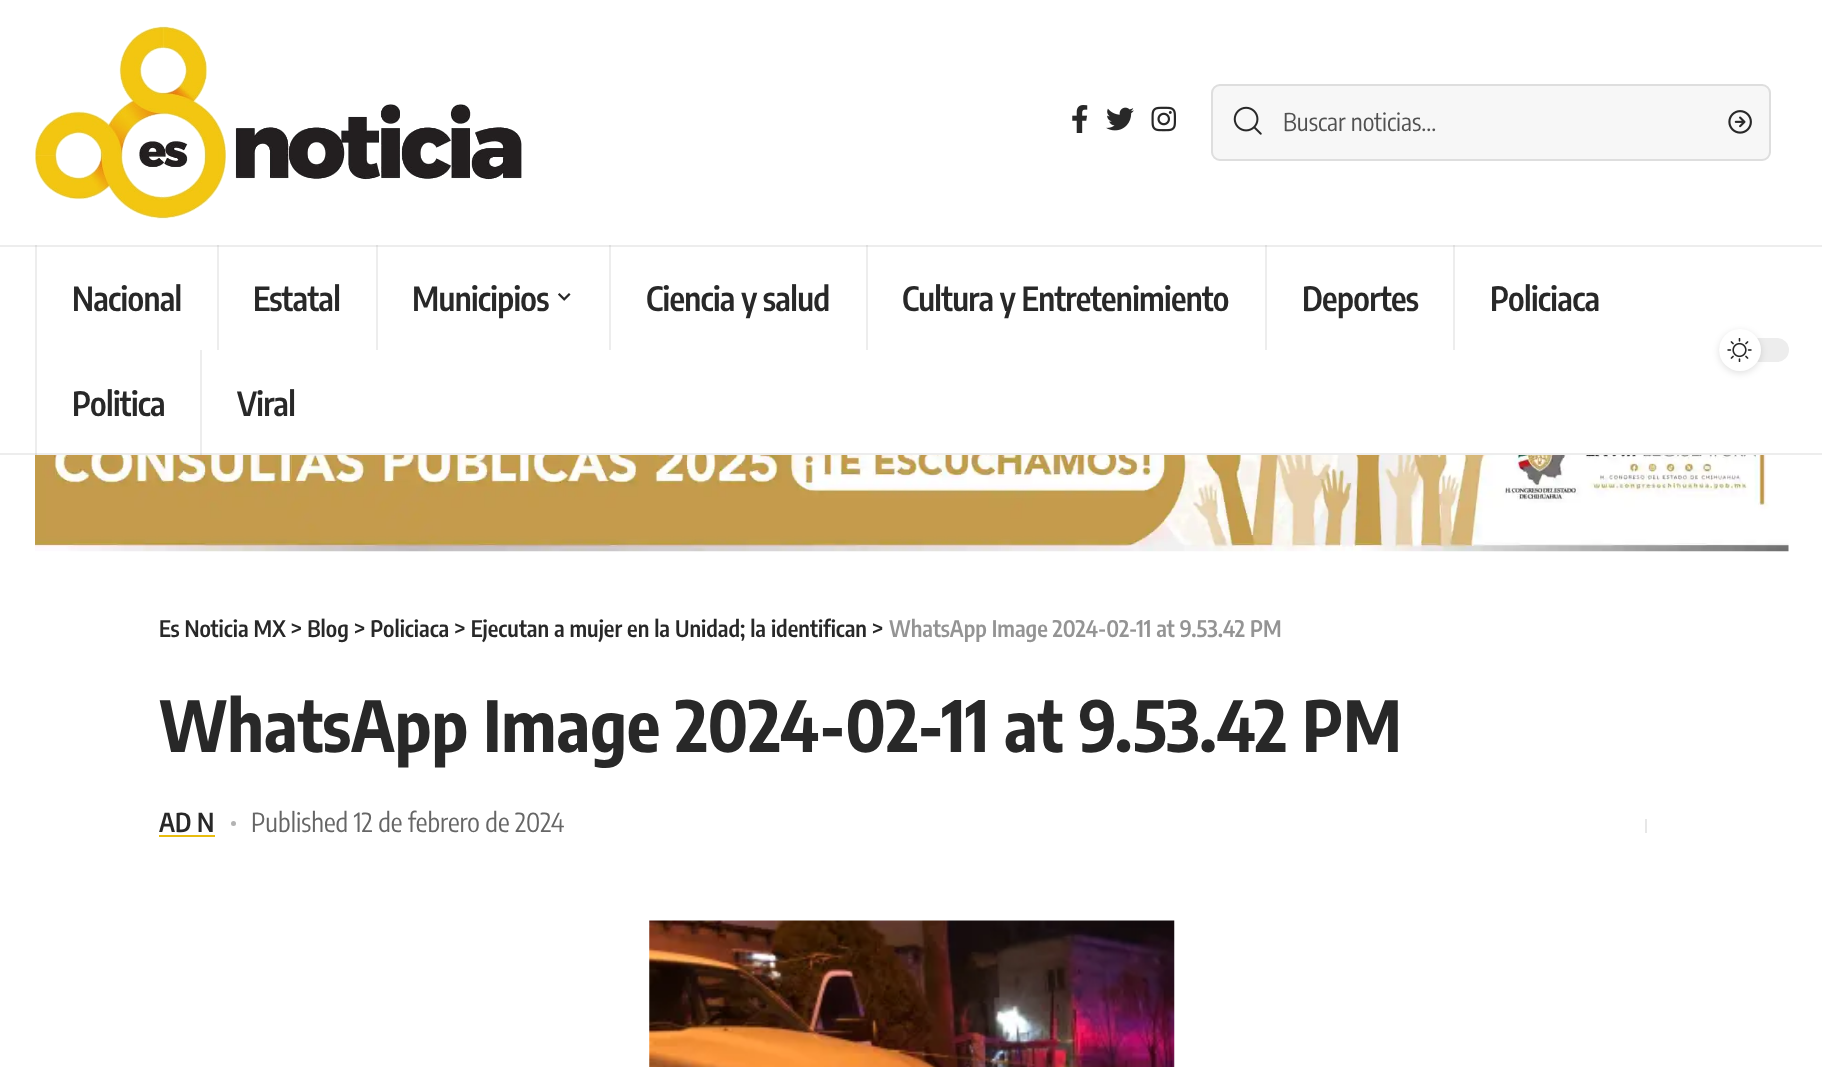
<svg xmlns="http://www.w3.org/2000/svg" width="1822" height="1067">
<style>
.a{font:24.5px Encode Sans Condensed;fill:#515151}
.b{font:600 33.25px Encode Sans Condensed;letter-spacing:-0.7px;fill:#282828}
.c{font:600 22.75px Encode Sans Condensed;fill:#282828}
.d{font:600 22.75px Encode Sans Condensed;fill:#949494}
.e{font:bold 70px Encode Sans Condensed;fill:#282828}
.f{font:600 26.2px Encode Sans Condensed;fill:#282828}
.g{font:26.2px Encode Sans Condensed;fill:#666}
</style>
<rect width="100%" height="100%" fill="#fff"/>
<image href="1.png" x="35" y="26" width="487" height="193"/>
<image href="2.png" x="1072" y="105" width="16" height="28"/>
<image href="3.png" x="1106" y="107" width="28" height="24"/>
<image href="4.png" x="1151" y="106" width="25" height="26"/>
<rect fill="#f7f7f7" x="1211" y="84" width="560" height="77" rx="9"/>
<rect fill="none" stroke="#2828281f" stroke-width="2" x="1212" y="85" width="558" height="75" rx="8"/>
<image href="5.png" x="1233" y="106" width="29" height="29"/>
<image href="6.png" x="1728" y="110" width="24" height="24"/>
<path fill="#ededed" d="M1453 245h2v105H1453z"/>
<path fill="#ededed" d="M1265 245h2v105H1265z"/>
<path fill="#ededed" d="M866 245h2v105H866z"/>
<path fill="#ededed" d="M609 245h2v105H609z"/>
<path fill="#ededed" d="M376 245h2v105H376z"/>
<path fill="#ededed" d="M217 245h2v105H217z"/>
<path fill="#ededed" d="M35 245h2v210H35z"/>
<path fill="#ededed" d="M0 245h1822v2H0z"/>
<path fill="#dedede" d="M1453 245h2v2H1453z"/>
<path fill="#dedede" d="M1265 245h2v2H1265z"/>
<path fill="#dedede" d="M866 245h2v2H866z"/>
<path fill="#dedede" d="M609 245h2v2H609z"/>
<path fill="#dedede" d="M376 245h2v2H376z"/>
<path fill="#dedede" d="M217 245h2v2H217z"/>
<path fill="#dedede" d="M35 245h2v2H35z"/>
<image href="7.png" x="558" y="293" width="13" height="8"/>
<path fill="#ededed" d="M200 350h2v105H200z"/>
<rect fill="#ededed" x="1719" y="338" width="70" height="24" rx="12"/>
<rect fill="#0000001f" filter="blur(3.5px)" x="1719" y="331" width="42" height="42" rx="21"/>
<circle fill="#fff" cx="1740" cy="350" r="21"/>
<image href="8.png" x="1727" y="338" width="25" height="24"/>
<path fill="#88888826" d="M0 453h1822v2H0z"/>
<image href="9.png" x="35" y="455" width="1754" height="97"/>
<path fill="#e8bc0d" d="M159 835h56v2H159z"/>
<circle fill="#b3b3b3" cx="233.5" cy="823.5" r="2.5"/>
<path fill="#e7e7e7" d="M1645 819h2v14H1645z"/>
<image href="10.png" x="649" y="920" width="526" height="147"/>
<text class="a" x="1283" y="131">Buscar noticias...</text>
<text class="b" x="72" y="311">Nacional</text>
<text class="b" x="253" y="311">Estatal</text>
<text class="b" x="412" y="311">Municipios</text>
<text class="b" x="646" y="311">Ciencia y salud</text>
<text class="b" x="902" y="311">Cultura y Entretenimiento</text>
<text class="b" x="1302" y="311">Deportes</text>
<text class="b" x="1490" y="311">Policiaca</text>
<text class="b" x="72" y="416">Politica</text>
<text class="b" x="237" y="416">Viral</text>
<text class="c" x="159" y="637">Es Noticia MX &gt; Blog &gt; Policiaca &gt; Ejecutan a mujer en la Unidad; la identifican &gt;</text>
<text class="d" x="889" y="637">WhatsApp Image 2024-02-11 at 9.53.42 PM</text>
<text class="e" x="159" y="752">WhatsApp Image 2024-02-11 at 9.53.42 PM</text>
<text class="f" x="159" y="832">AD N</text>
<text class="g" x="251" y="832">Published 12 de febrero de 2024</text>
</svg>
